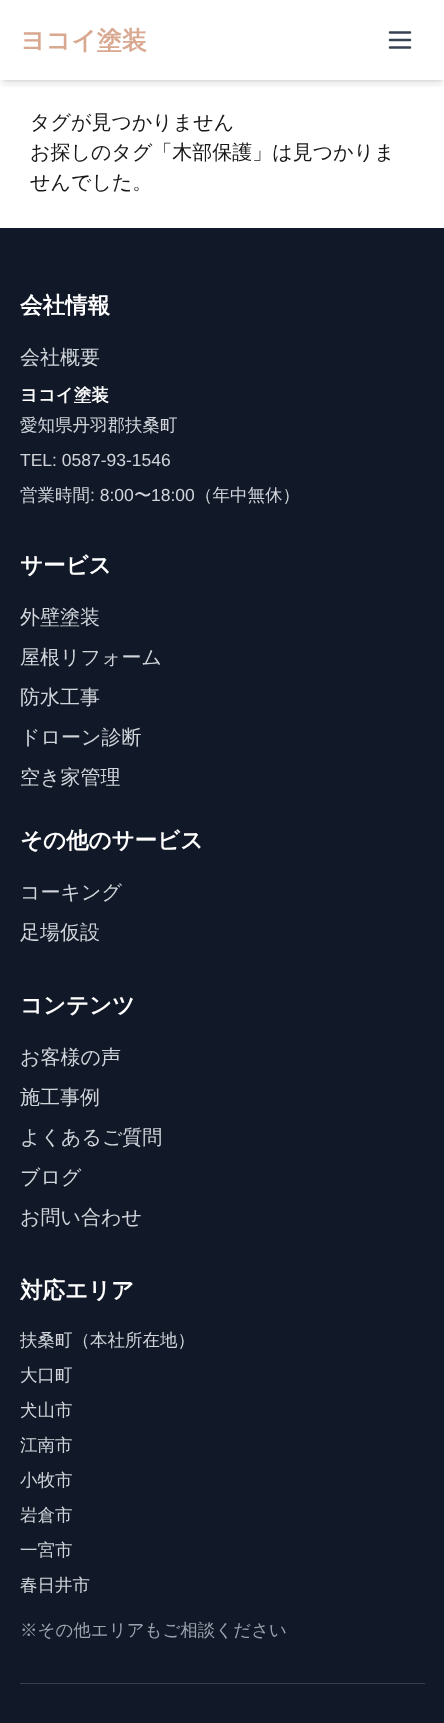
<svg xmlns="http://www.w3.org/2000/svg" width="444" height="1723">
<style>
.a{font:bold 25px WenQuanYi Zen Hei;fill:#d9a891}
.b{font:500 20px WenQuanYi Zen Hei;fill:#171717}
.c{font:bold 22.5px WenQuanYi Zen Hei;fill:#fff}
.d{font:500 20px WenQuanYi Zen Hei;fill:#d1d5db}
.e{font:bold 17.5px WenQuanYi Zen Hei;fill:#fff}
.f{font:500 17.5px WenQuanYi Zen Hei;fill:#d1d5db}
.g{font:17.5px Liberation Sans;fill:#d1d5db}
.h{font:500 17.5px WenQuanYi Zen Hei;fill:#9ca3af}
</style>
<defs>
<clipPath id="clip1"><path d="M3 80h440v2H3z"/></clipPath>
<clipPath id="clip2"><path d="M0 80h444v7H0z"/></clipPath>
</defs>
<rect width="100%" height="100%" fill="#fff"/>
<g clip-path="url(#clip1)">
<path fill="#0000001a" filter="blur(2.5px)" d="M3 5h440v75H3z"/>
</g>
<g clip-path="url(#clip2)">
<path fill="#0000001a" filter="blur(4px)" d="M1 6h443v78H1z"/>
</g>
<path fill="none" stroke="#374151" stroke-width="2.5" stroke-linecap="round" stroke-linejoin="round" d="M390 32.5h20m-20 7.5h20m-20 7.5h20"/>
<path fill="#111827" d="M0 228h444v1495H0z"/>
<path fill="#374151" d="M20 1683h405v1H20z"/>
<text class="a" x="20" y="49">ヨコイ塗装</text>
<text class="b" x="30" y="129">タグが見つかりません</text>
<text class="b" x="30" y="159">お探しのタグ「木部保護」は見つかりま</text>
<text class="b" x="30" y="189">せんでした。</text>
<text class="c" x="20" y="313">会社情報</text>
<text class="d" x="20" y="364">会社概要</text>
<text class="e" x="20" y="401">ヨコイ塗装</text>
<text class="f" x="20" y="431">愛知県丹羽郡扶桑町</text>
<text class="g" x="20" y="466">TEL: 0587-93-1546</text>
<text class="f" x="20" y="501">営業時間</text>
<text class="g" x="90" y="501">: 8:00</text>
<text class="f" x="134" y="501">〜</text>
<text class="g" x="151" y="501">18:00</text>
<text class="f" x="195" y="501">（年中無休）</text>
<text class="c" x="20" y="573">サービス</text>
<text class="d" x="20" y="624">外壁塗装</text>
<text class="d" x="20" y="664">屋根リフォーム</text>
<text class="d" x="20" y="704">防水工事</text>
<text class="d" x="20" y="744">ドローン診断</text>
<text class="d" x="20" y="784">空き家管理</text>
<text class="c" x="20" y="848">その他のサービス</text>
<text class="d" x="20" y="899">コーキング</text>
<text class="d" x="20" y="939">足場仮設</text>
<text class="c" x="20" y="1013">コンテンツ</text>
<text class="d" x="20" y="1064">お客様の声</text>
<text class="d" x="20" y="1104">施工事例</text>
<text class="d" x="20" y="1144">よくあるご質問</text>
<text class="d" x="20" y="1184">ブログ</text>
<text class="d" x="20" y="1224">お問い合わせ</text>
<text class="c" x="20" y="1298">対応エリア</text>
<text class="f" x="20" y="1346">扶桑町（本社所在地）</text>
<text class="f" x="20" y="1381">大口町</text>
<text class="f" x="20" y="1416">犬山市</text>
<text class="f" x="20" y="1451">江南市</text>
<text class="f" x="20" y="1486">小牧市</text>
<text class="f" x="20" y="1521">岩倉市</text>
<text class="f" x="20" y="1556">一宮市</text>
<text class="f" x="20" y="1591">春日井市</text>
<text class="h" x="20" y="1636">※その他エリアもご相談ください</text>
</svg>
